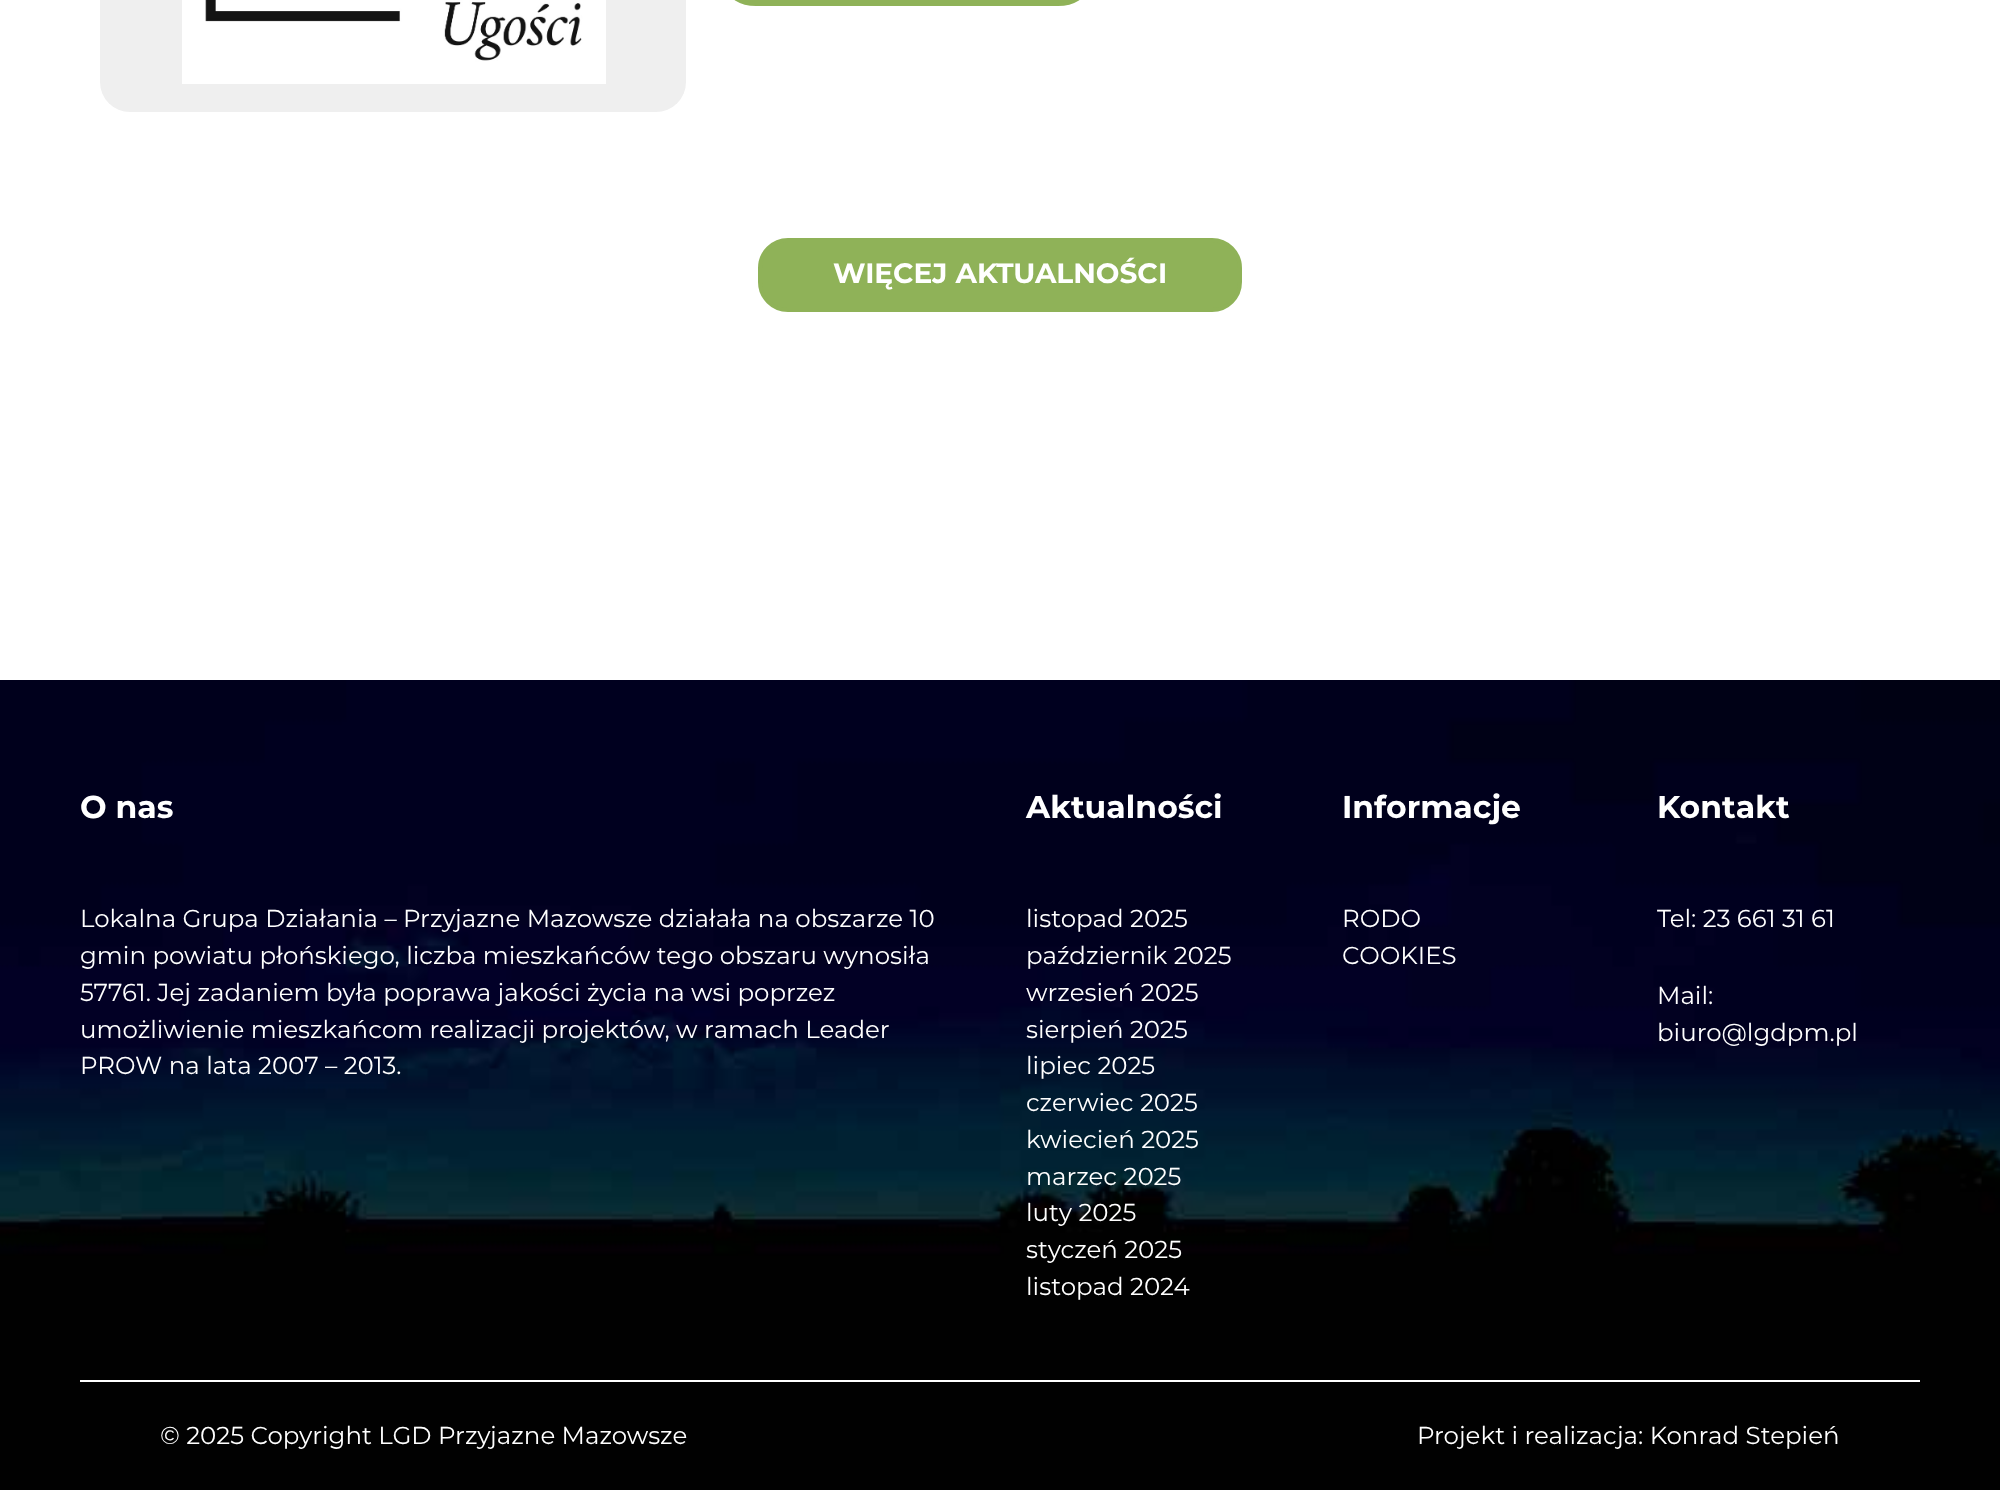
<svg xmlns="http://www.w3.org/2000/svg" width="2000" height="1490">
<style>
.a{font:bold 28px Montserrat;fill:#fff}
.b{font:bold 31.5px Montserrat;fill:#fff}
.c{font:24.5px Montserrat;fill:#fff}
</style>
<rect width="100%" height="100%" fill="#fff"/>
<rect fill="#efefef" x="100" y="-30" width="586" height="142" rx="30"/>
<image href="1.png" x="182" y="0" width="424" height="84"/>
<rect fill="#8fb258" stroke="#8fb258" stroke-width="4" x="728" y="-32" width="358" height="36" rx="28"/>
<rect fill="#8fb258" stroke="#8fb258" stroke-width="4" x="760" y="240" width="480" height="70" rx="28"/>
<image href="2.png" x="0" y="680" width="2000" height="810"/>
<path fill="#fff" d="M80 1380h1840v2H80z"/>
<text class="a" x="833" y="283">WIĘCEJ AKTUALNOŚCI</text>
<text class="b" x="80" y="818">O nas</text>
<text class="c" x="80" y="927">Lokalna Grupa Działania – Przyjazne Mazowsze działała na obszarze 10</text>
<text class="c" x="80" y="964">gmin powiatu płońskiego, liczba mieszkańców tego obszaru wynosiła</text>
<text class="c" x="80" y="1001">57761. Jej zadaniem była poprawa jakości życia na wsi poprzez</text>
<text class="c" x="80" y="1038">umożliwienie mieszkańcom realizacji projektów, w ramach Leader</text>
<text class="c" x="80" y="1074">PROW na lata 2007 – 2013.</text>
<text class="b" x="1026" y="818">Aktualności</text>
<text class="c" x="1026" y="927">listopad 2025</text>
<text class="c" x="1026" y="964">październik 2025</text>
<text class="c" x="1026" y="1001">wrzesień 2025</text>
<text class="c" x="1026" y="1038">sierpień 2025</text>
<text class="c" x="1026" y="1074">lipiec 2025</text>
<text class="c" x="1026" y="1111">czerwiec 2025</text>
<text class="c" x="1026" y="1148">kwiecień 2025</text>
<text class="c" x="1026" y="1185">marzec 2025</text>
<text class="c" x="1026" y="1221">luty 2025</text>
<text class="c" x="1026" y="1258">styczeń 2025</text>
<text class="c" x="1026" y="1295">listopad 2024</text>
<text class="b" x="1342" y="818">Informacje</text>
<text class="c" x="1342" y="927">RODO</text>
<text class="c" x="1342" y="964">COOKIES</text>
<text class="b" x="1657" y="818">Kontakt</text>
<text class="c" x="1657" y="927">Tel: 23 661 31 61</text>
<text class="c" x="1657" y="1004">Mail:</text>
<text class="c" x="1657" y="1041">biuro@lgdpm.pl</text>
<text class="c" x="160" y="1444">© 2025 Copyright LGD Przyjazne Mazowsze</text>
<text class="c" x="1417" y="1444">Projekt i realizacja: Konrad Stepień</text>
</svg>
